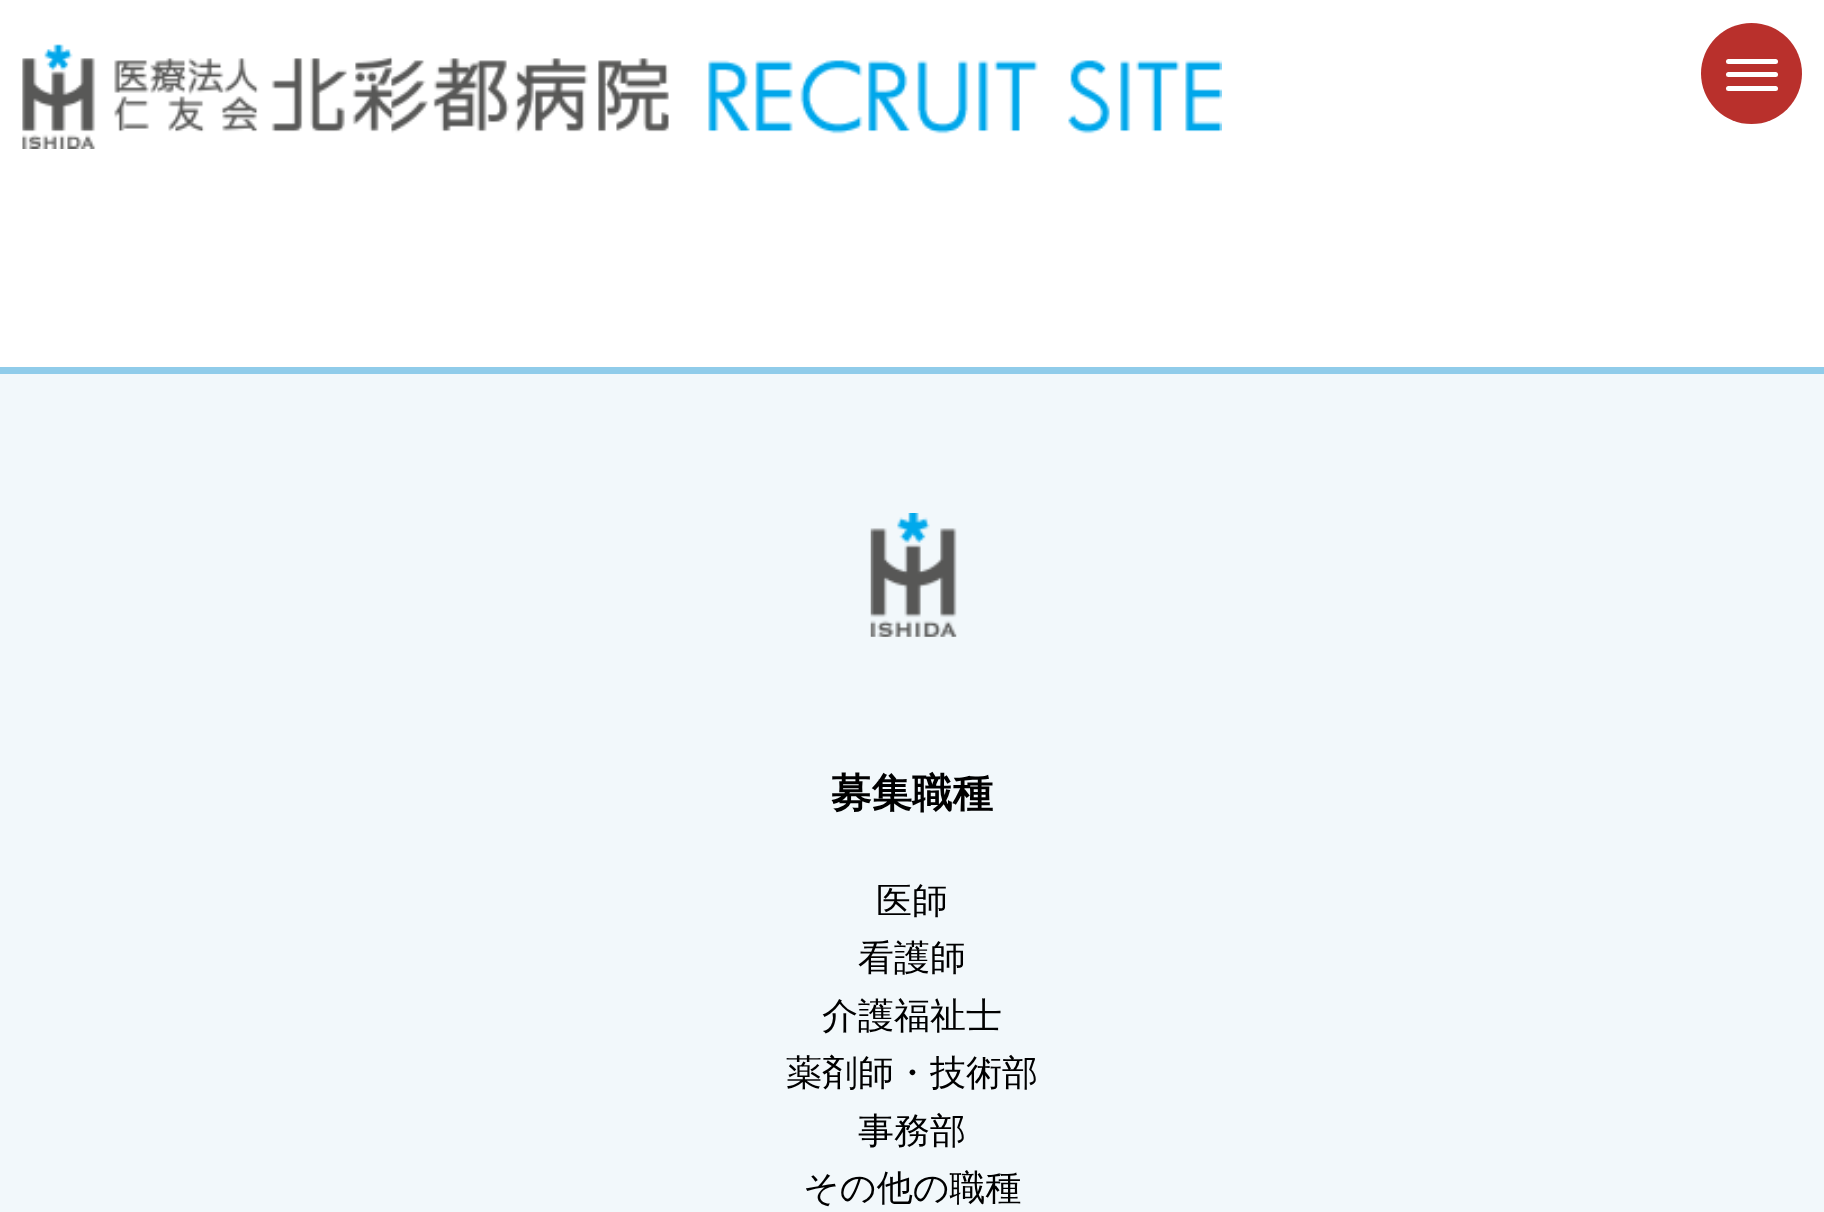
<svg xmlns="http://www.w3.org/2000/svg" width="1824" height="1212">
<style>
.a{font:bold 40.5px WenQuanYi Zen Hei;fill:#000}
.b{font:500 36px WenQuanYi Zen Hei;fill:#000}
</style>
<rect width="100%" height="100%" fill="#fff"/>
<image href="1.png" x="22" y="44" width="1200" height="105"/>
<circle fill="#b9302c" cx="1751.5" cy="73.5" r="50.5"/>
<rect fill="#fff" x="1726" y="59" width="52" height="5" rx="2.5"/>
<rect fill="#fff" x="1726" y="72" width="52" height="5" rx="2.5"/>
<rect fill="#fff" x="1726" y="86" width="52" height="5" rx="2.5"/>
<path fill="#f2f8fb" d="M0 374h1824v838H0z"/>
<path fill="#90ccea" d="M0 367h1824v7H0z"/>
<image href="2.png" x="870" y="513" width="87" height="124"/>
<text class="a" x="831" y="807">募集職種</text>
<text class="b" x="876" y="913">医師</text>
<text class="b" x="858" y="970">看護師</text>
<text class="b" x="822" y="1028">介護福祉士</text>
<text class="b" x="786" y="1085">薬剤師・技術部</text>
<text class="b" x="858" y="1143">事務部</text>
<text class="b" x="803" y="1200">その他の職種</text>
</svg>
